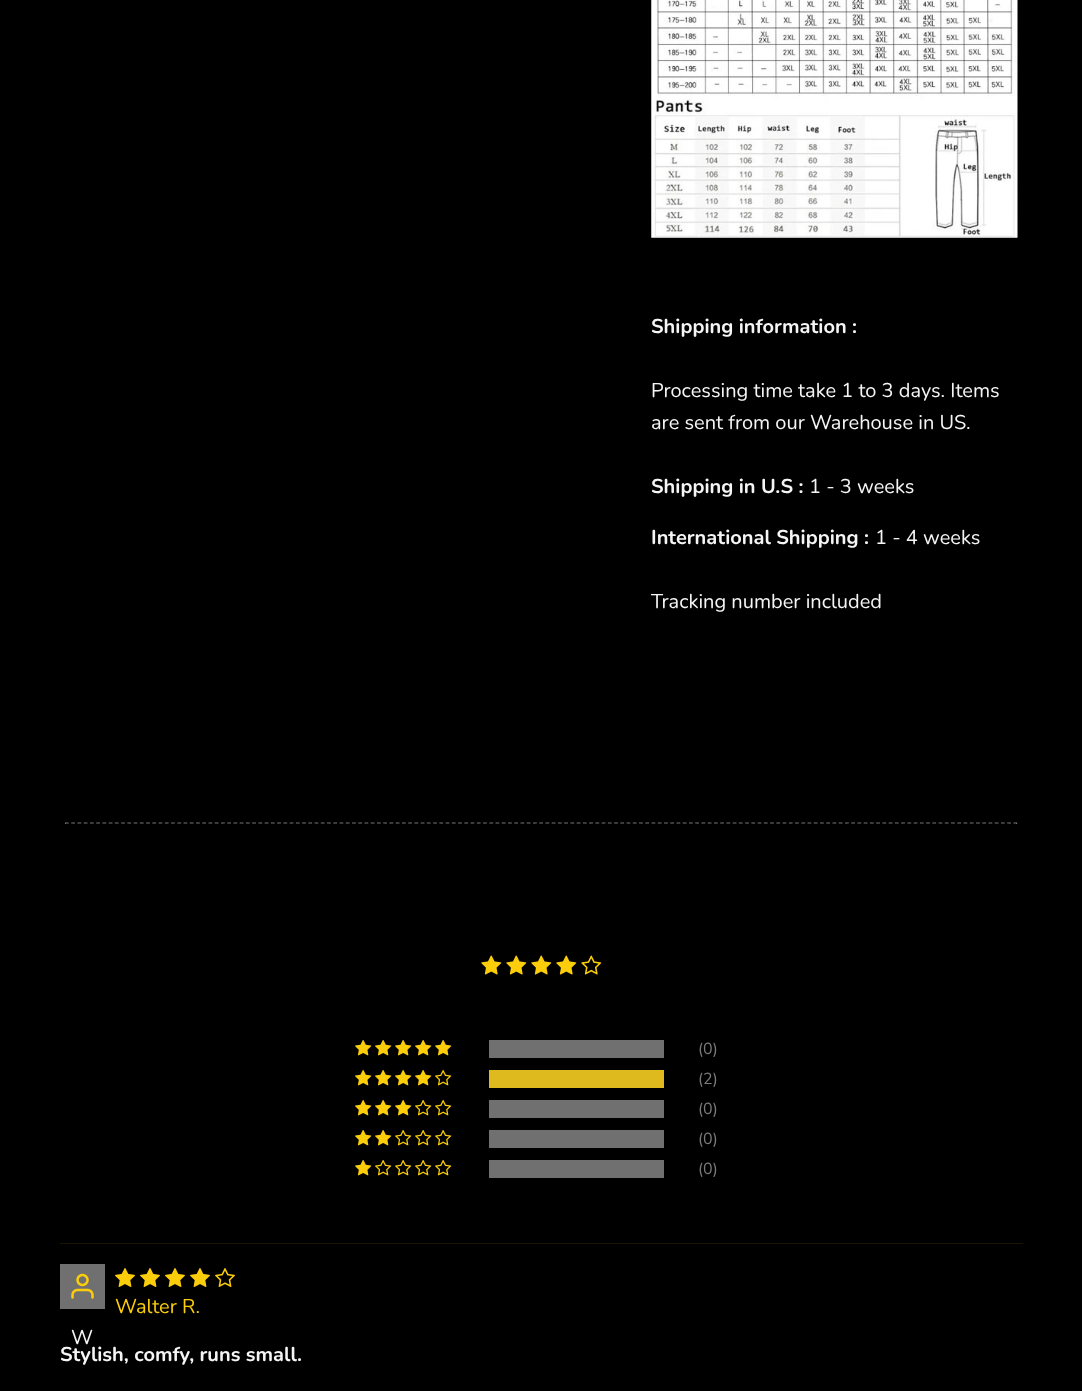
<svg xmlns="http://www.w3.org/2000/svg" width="1082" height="1391">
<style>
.a{font:bold 20px Nunito;fill:#f5f5f5}
.b{font:20px Nunito;fill:#f5f5f5}
.c{font:16px Nunito;fill:#7b7b7b}
.d{font:20px Nunito;fill:#fbcd0a}
</style>
<rect width="100%" height="100%" fill="#000"/>
<image href="1.png" x="651" y="0" width="367" height="238"/>
<path fill="#797777" d="M1016 823h1v1H1016z"/>
<path fill="none" stroke="#797777" stroke-width="1.2" stroke-dasharray="3.75 2.49" d="M65 823h952.5"/>
<path fill="#797777" d="M65 823h1v1H65z"/>
<image href="2.png" x="481" y="955" width="21" height="20"/>
<image href="2.png" x="506" y="955" width="21" height="20"/>
<image href="2.png" x="531" y="955" width="21" height="20"/>
<image href="2.png" x="556" y="955" width="21" height="20"/>
<image href="3.png" x="581" y="955" width="21" height="20"/>
<image href="4.png" x="355" y="1040" width="17" height="16"/>
<image href="4.png" x="375" y="1040" width="17" height="16"/>
<image href="4.png" x="395" y="1040" width="17" height="16"/>
<image href="4.png" x="415" y="1040" width="17" height="16"/>
<image href="4.png" x="435" y="1040" width="17" height="16"/>
<path fill="#707070" d="M489 1040h175v18H489z"/>
<image href="4.png" x="355" y="1070" width="17" height="16"/>
<image href="4.png" x="375" y="1070" width="17" height="16"/>
<image href="4.png" x="395" y="1070" width="17" height="16"/>
<image href="4.png" x="415" y="1070" width="17" height="16"/>
<image href="5.png" x="435" y="1070" width="17" height="16"/>
<path fill="#dfba1e" d="M489 1070h175v18H489z"/>
<image href="4.png" x="355" y="1100" width="17" height="16"/>
<image href="4.png" x="375" y="1100" width="17" height="16"/>
<image href="4.png" x="395" y="1100" width="17" height="16"/>
<image href="5.png" x="415" y="1100" width="17" height="16"/>
<image href="5.png" x="435" y="1100" width="17" height="16"/>
<path fill="#707070" d="M489 1100h175v18H489z"/>
<image href="4.png" x="355" y="1130" width="17" height="16"/>
<image href="4.png" x="375" y="1130" width="17" height="16"/>
<image href="5.png" x="395" y="1130" width="17" height="16"/>
<image href="5.png" x="415" y="1130" width="17" height="16"/>
<image href="5.png" x="435" y="1130" width="17" height="16"/>
<path fill="#707070" d="M489 1130h175v18H489z"/>
<image href="4.png" x="355" y="1160" width="17" height="16"/>
<image href="5.png" x="375" y="1160" width="17" height="16"/>
<image href="5.png" x="395" y="1160" width="17" height="16"/>
<image href="5.png" x="415" y="1160" width="17" height="16"/>
<image href="5.png" x="435" y="1160" width="17" height="16"/>
<path fill="#707070" d="M489 1160h175v18H489z"/>
<path fill="#191501" d="M60 1243h963v1H60z"/>
<image href="6.png" x="115" y="1268" width="20" height="19"/>
<image href="6.png" x="140" y="1268" width="20" height="19"/>
<image href="6.png" x="165" y="1268" width="20" height="19"/>
<image href="6.png" x="190" y="1268" width="20" height="19"/>
<image href="7.png" x="215" y="1268" width="20" height="19"/>
<path fill="#707070" d="M60 1264h45v45H60z"/>
<image href="8.png" x="71" y="1273" width="23" height="26"/>
<text class="a" x="651" y="333">Shipping information :</text>
<text class="b" x="651" y="397">Processing time take 1 to 3 days. Items</text>
<text class="b" x="651" y="429">are sent from our Warehouse in US.</text>
<text class="a" x="651" y="493">Shipping in U.S :</text>
<text class="b" x="809" y="493">1 - 3 weeks</text>
<text class="a" x="651" y="544">International Shipping :</text>
<text class="b" x="875" y="544">1 - 4 weeks</text>
<text class="b" x="651" y="608">Tracking number included</text>
<text class="c" x="698" y="1054">(0)</text>
<text class="c" x="698" y="1084">(2)</text>
<text class="c" x="698" y="1114">(0)</text>
<text class="c" x="698" y="1144">(0)</text>
<text class="c" x="698" y="1174">(0)</text>
<text class="d" x="115" y="1313">Walter R.</text>
<text class="b" x="71" y="1344">W</text>
<text class="a" x="60" y="1361">Stylish, comfy, runs small.</text>
</svg>
